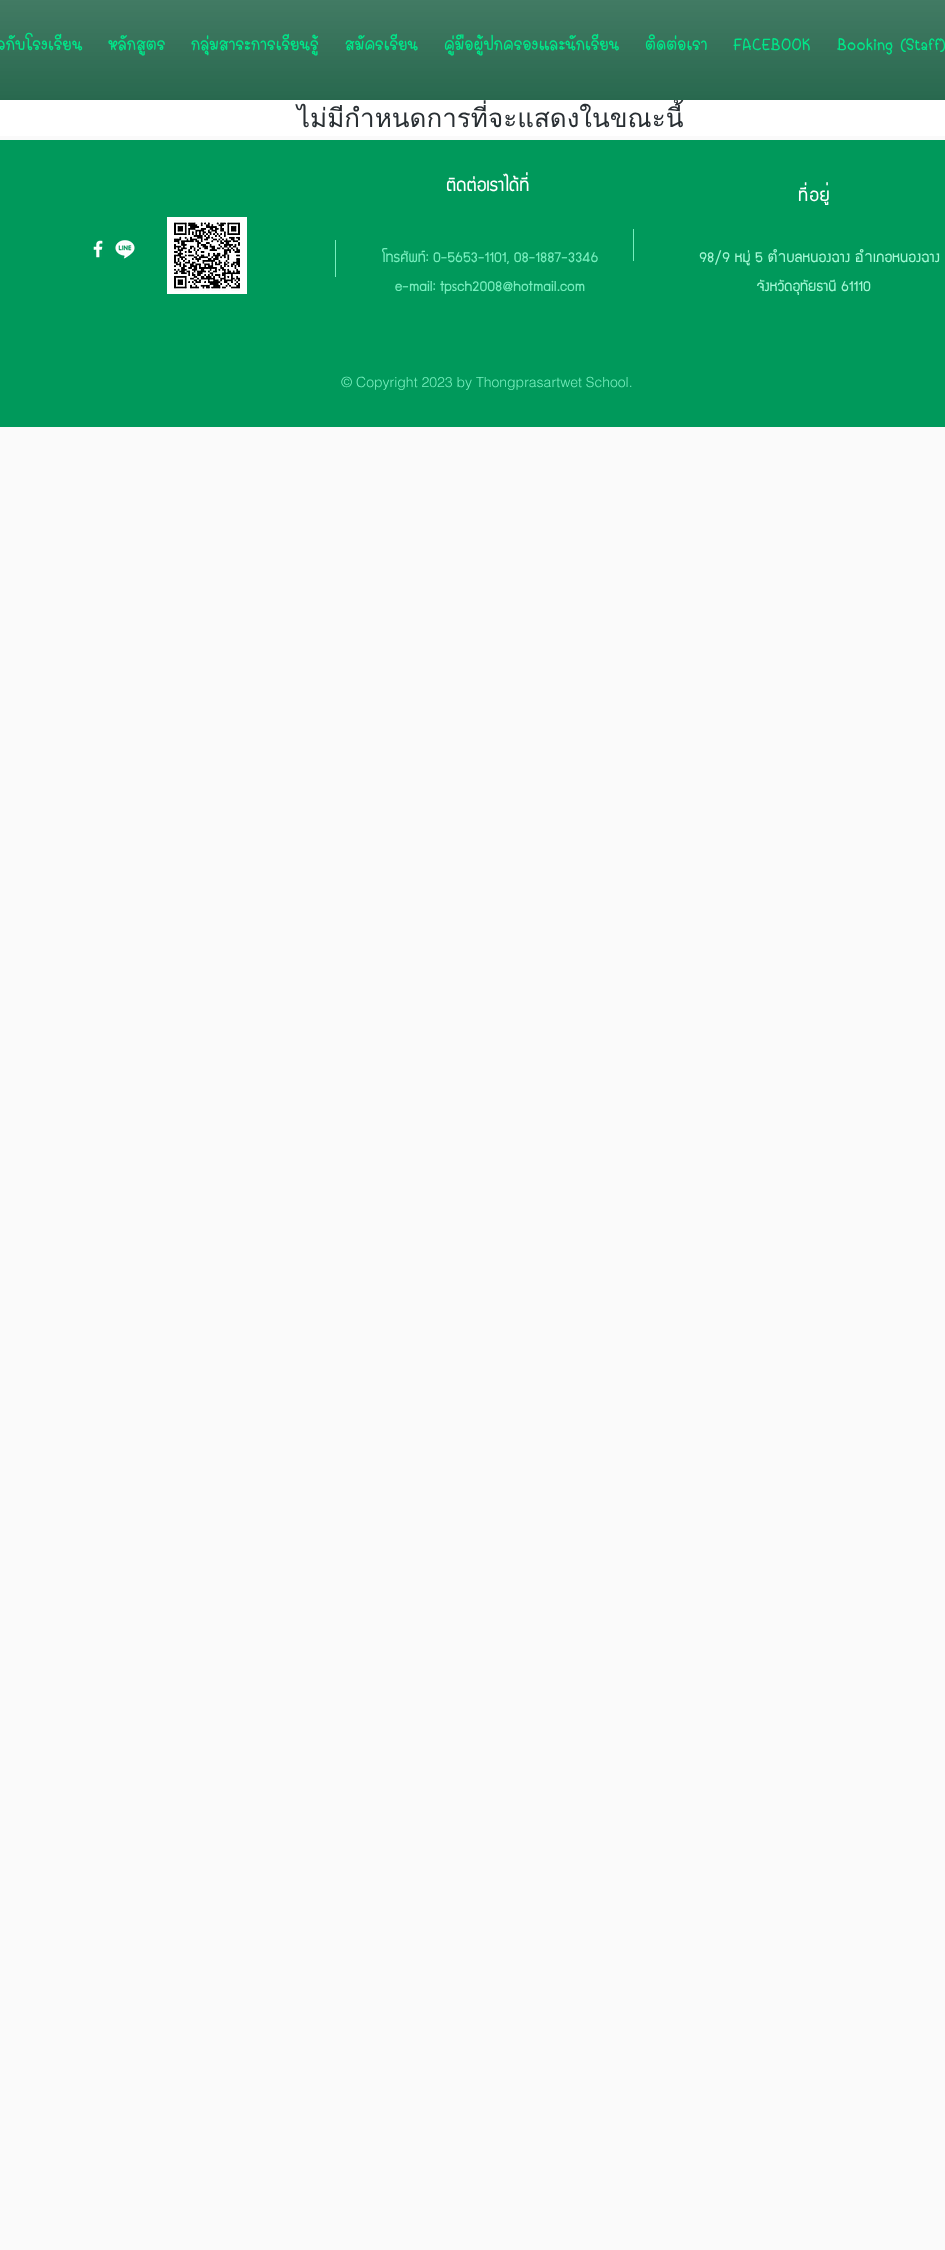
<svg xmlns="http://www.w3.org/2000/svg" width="945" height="2250">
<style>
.a{font:26px Loma;fill:#292f33}
.b{font:24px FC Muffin;fill:#00e689}
.c{font:20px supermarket;fill:#fff}
.d{font:20px supermarket;letter-spacing:1px;fill:#fff}
.e{font:16px supermarket;fill:#77eebe}
.f{font:16px supermarket;fill:#a4f7d5}
.g{font:300 14px helvetica;fill:#77eebe}
</style>
<rect width="100%" height="100%" fill="#fafafa"/>
<path fill="#fff" d="M0 100h945v36H0z"/>
<path fill="#00995b" d="M0 140h945v287H0z"/>
<image href="2.png" x="93" y="240" width="10" height="18"/>
<image href="3.png" x="115" y="240" width="20" height="19"/>
<image href="4.png" x="167" y="217" width="80" height="77"/>
<path fill="#77eebe" d="M335 240h1v37H335z"/>
<path fill="#77eebe" d="M633 229h1v32H633z"/>
<text class="a" x="297" y="127">ไม่มีกำหนดการที่จะแสดงในขณะนี้</text>
<path fill="#004d2e" d="M0 0h945v100H0z"/>
<image href="1.png" x="0" y="0" width="945" height="100"/>
<text class="b" x="837" y="50">Booking (Staff)</text>
<text class="b" x="733" y="50">FACEBOOK</text>
<text class="b" x="645" y="50">ติดต่อเรา</text>
<text class="b" x="444" y="50">คู่มือผู้ปกครองและนักเรียน</text>
<text class="b" x="345" y="50">สมัครเรียน</text>
<text class="b" x="191" y="50">กลุ่มสาระการเรียนรู้</text>
<text class="b" x="108" y="50">หลักสูตร</text>
<text class="b" x="-2" y="50">วกับโรงเรียน</text>
<text class="c" x="446" y="191">ติดต่อเราได้ที่</text>
<text class="d" x="798" y="201">ที่อยู่</text>
<text class="e" x="382" y="262">โทรศัพท์: 0-5653-1101, 08-1887-3346</text>
<text class="e" x="395" y="291">e-mail: tpsch2008@hotmail.com</text>
<text class="f" x="699" y="262">98/9 หมู่ 5 ตำบลหนองฉาง อำเภอหนองฉาง</text>
<text class="f" x="757" y="291">จังหวัดอุทัยธานี 61110</text>
<text class="g" x="341" y="387">© Copyright 2023 by Thongprasartwet School.</text>
</svg>
